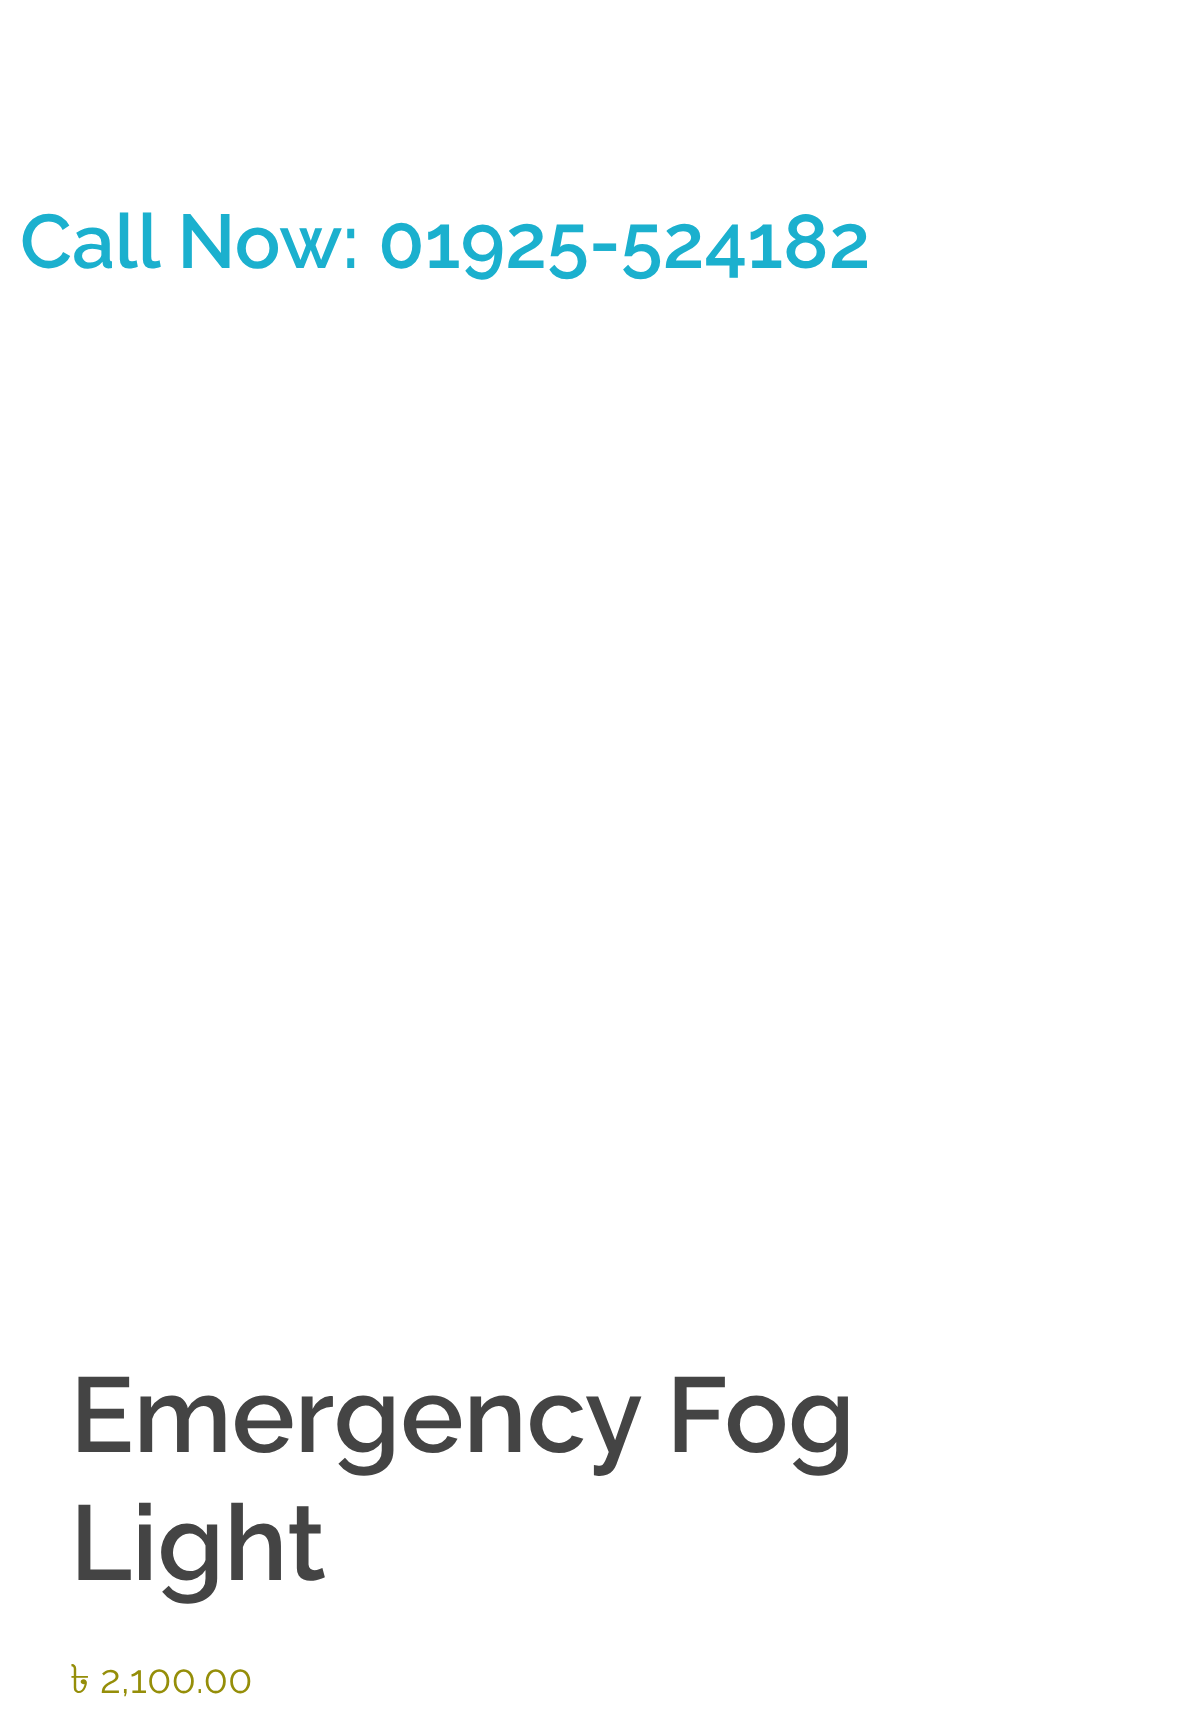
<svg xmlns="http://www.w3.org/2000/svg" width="1194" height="1711">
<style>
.a{font:600 76px Raleway;fill:#1bb0ce}
.b{font:600 106px Raleway;fill:#444}
.c{font:40px Lohit Bengali;fill:#958e09}
.d{font:40px Raleway;fill:#958e09}
</style>
<rect width="100%" height="100%" fill="#fff"/>
<text class="a" x="20" y="268">Call Now: 01925-524182</text>
<text class="b" x="70" y="1452">Emergency Fog</text>
<text class="b" x="70" y="1580">Light</text>
<text class="c" x="70" y="1693">৳</text>
<text class="d" x="100" y="1693">2,100.00</text>
</svg>
